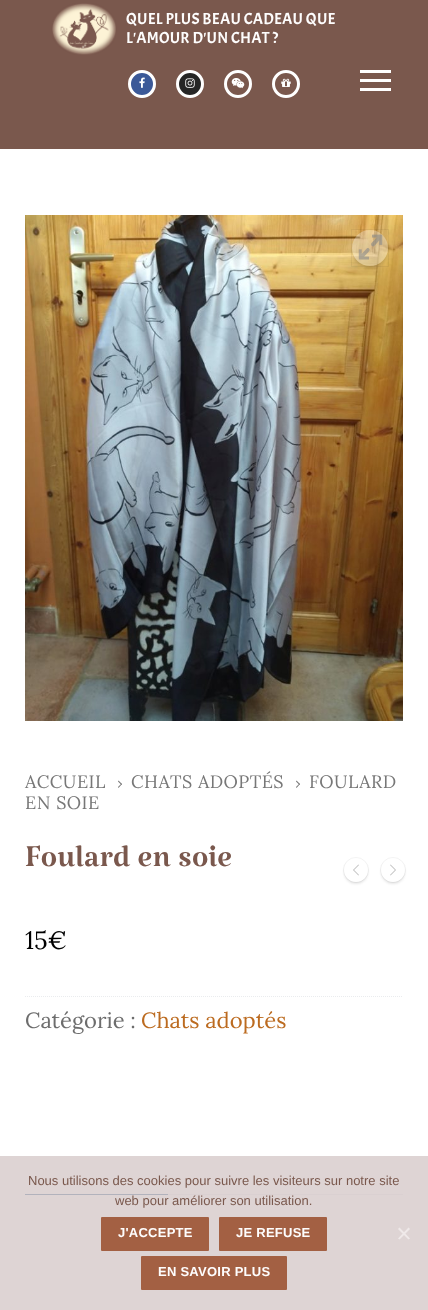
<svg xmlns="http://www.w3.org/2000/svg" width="428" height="1310">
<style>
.a{font:16px Acme;letter-spacing:0.2px;fill:#fefdfd}
.b{font:18px Lora;letter-spacing:0.5px;fill:#777}
.c{font:42.5px Katibeh;fill:#7a584d}
.d{font:25px Lora;fill:#000}
.e{font:22px Lora;fill:#6d6d6d}
.f{font:22px Lora;fill:#bc6b20}
.g{font:13px Liberation Sans;fill:#7a584d}
.h{font:bold 13px Liberation Sans;letter-spacing:0.25px;fill:#fefdfd}
</style>
<defs>
<clipPath id="clip1"><path d="M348 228h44v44h-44zm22 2c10 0 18 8 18 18c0 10-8 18-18 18c-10 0-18-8-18-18c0-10 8-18 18-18z" clip-rule="evenodd"/></clipPath>
<clipPath id="clip2"><path d="M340 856h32v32h-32zm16 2c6.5 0 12 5.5 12 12c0 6.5-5.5 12-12 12c-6.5 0-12-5.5-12-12c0-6.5 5.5-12 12-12z" clip-rule="evenodd"/></clipPath>
<clipPath id="clip3"><path d="M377 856h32v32h-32zm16 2c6.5 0 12 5.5 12 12c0 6.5-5.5 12-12 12c-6.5 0-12-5.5-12-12c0-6.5 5.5-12 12-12z" clip-rule="evenodd"/></clipPath>
</defs>
<rect width="100%" height="100%" fill="#fff"/>
<path fill="#7a584d" d="M0 0h428v149H0z"/>
<image href="1.png" x="52" y="3" width="64" height="52"/>
<circle fill="#3b5998" stroke="#fff" stroke-width="3" cx="142" cy="84" r="12.5"/>
<image href="2.png" x="139" y="77" width="6" height="11"/>
<circle fill="#262626" stroke="#fff" stroke-width="3" cx="190" cy="84" r="12.5"/>
<image href="3.png" x="185" y="78" width="10" height="10"/>
<circle fill="none" stroke="#fff" stroke-width="3" cx="238" cy="84" r="12.5"/>
<image href="4.png" x="231" y="78" width="14" height="11"/>
<circle fill="none" stroke="#fff" stroke-width="3" cx="286" cy="84" r="12.5"/>
<image href="5.png" x="281" y="78" width="10" height="9"/>
<path fill="#fff" d="M360 79h31v3H360z"/>
<path fill="#fff" d="M360 70h31v3H360z"/>
<path fill="#fff" d="M360 88h31v3H360z"/>
<image href="6.png" x="25" y="215" width="378" height="506"/>
<path fill="none" stroke="#0000000d" d="M351.5 229.5h37v37H351.5z"/>
<g clip-path="url(#clip1)">
<rect fill="#0000001a" filter="blur(1px)" x="352" y="232" width="36" height="36" rx="18"/>
</g>
<circle fill="#ffffff4d" cx="370" cy="248" r="18"/>
<image href="7.png" x="358" y="234" width="25" height="26"/>
<path fill="#777" d="M122 784l-3.5 4l-.5-1l3.5-3.5z"/>
<path fill="#777" d="M122 784l-.5 1l-3.5-3.5l.5-1z"/>
<path fill="#777" d="M300 784l-3.5 4l-.5-1l3.5-3.5z"/>
<path fill="#777" d="M300 784l-.5 1l-3.5-3.5l.5-1z"/>
<circle fill="none" stroke="#f3f3f3" cx="356" cy="870" r="12.5"/>
<g clip-path="url(#clip2)">
<rect fill="#66666629" filter="blur(1px)" x="344" y="860" width="24" height="24" rx="12"/>
</g>
<circle fill="#ffffff80" cx="356" cy="870" r="12"/>
<image href="8.png" x="353" y="864" width="6" height="12"/>
<circle fill="none" stroke="#f3f3f3" cx="393" cy="870" r="12.5"/>
<g clip-path="url(#clip3)">
<rect fill="#66666629" filter="blur(1px)" x="381" y="860" width="24" height="24" rx="12"/>
</g>
<circle fill="#ffffff80" cx="393" cy="870" r="12"/>
<image href="9.png" x="390" y="864" width="6" height="12"/>
<path fill="none" stroke="#eaecee" stroke-dasharray="1 1" d="M25 996.5h378"/>
<path fill="#eaecee" d="M168 1194h235v1H168z"/>
<path fill="#235787" d="M25 1194h143v1H25z"/>
<path fill="#d6c9c9cc" d="M0 1156h428v154H0z"/>
<rect fill="#a36043" x="101" y="1217" width="108" height="34" rx="1"/>
<rect fill="#a36043" x="219" y="1217" width="108" height="34" rx="1"/>
<rect fill="#a36043" x="141" y="1256" width="146" height="34" rx="1"/>
<path fill="#efe9e9" d="M408.5 1227.5l1.5 1.5l-10.5 10.5l-1.5-1z"/>
<path fill="#efe9e9" d="M398 1229l1.5-1.5l10.5 11l-1.5 1z"/>
<text class="a" x="126" y="24">QUEL PLUS BEAU CADEAU QUE</text>
<text class="a" x="126" y="43">L'AMOUR D'UN CHAT ?</text>
<text class="b" x="25" y="788">ACCUEIL</text>
<text class="b" x="131" y="788">CHATS ADOPTÉS</text>
<text class="b" x="309" y="788">FOULARD</text>
<text class="b" x="25" y="809">EN SOIE</text>
<text class="c" x="25" y="866">Foulard en soie</text>
<text class="d" x="25" y="949">15€</text>
<text class="e" x="25" y="1028">Catégorie :</text>
<text class="f" x="141" y="1028">Chats adoptés</text>
<text class="g" x="28" y="1185">Nous utilisons des cookies pour suivre les visiteurs sur notre site</text>
<text class="g" x="115" y="1205">web pour améliorer son utilisation.</text>
<text class="h" x="118" y="1237">J'ACCEPTE</text>
<text class="h" x="236" y="1237">JE REFUSE</text>
<text class="h" x="158" y="1276">EN SAVOIR PLUS</text>
</svg>
